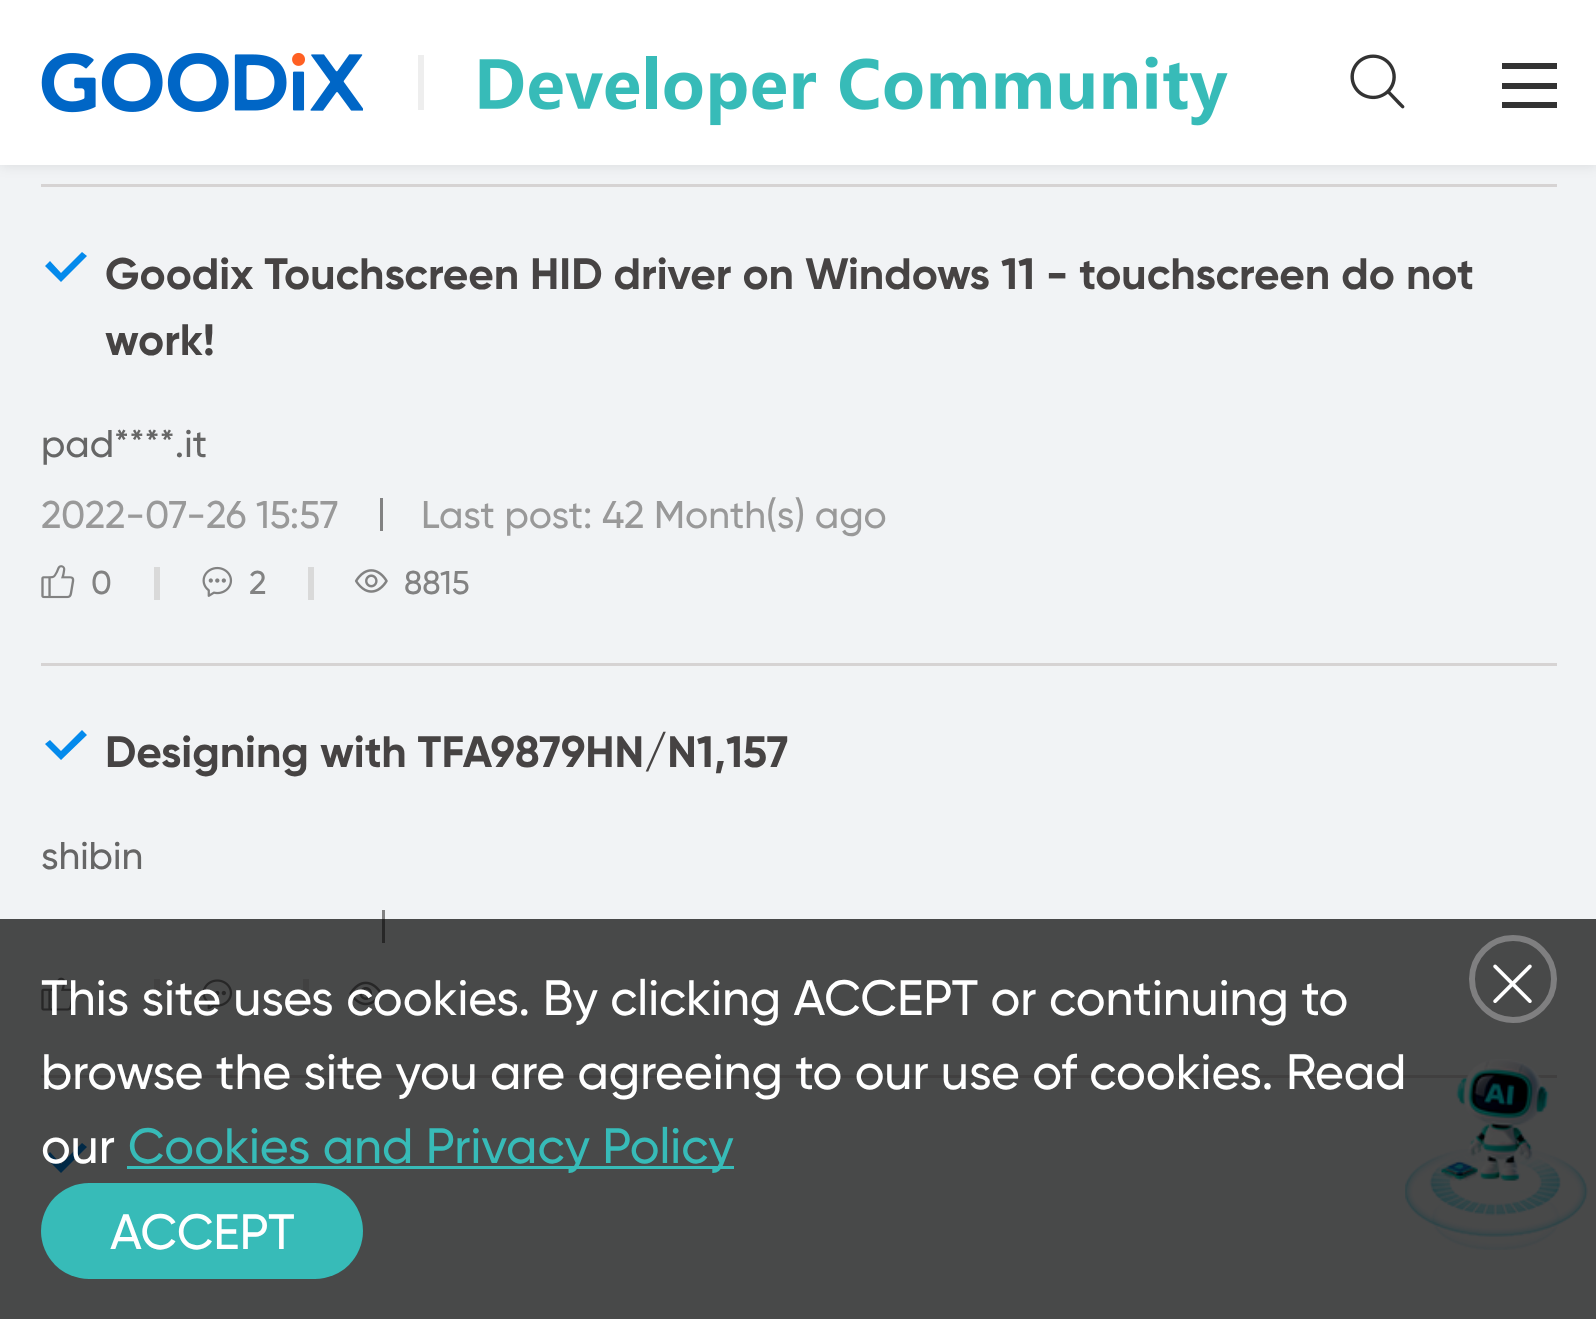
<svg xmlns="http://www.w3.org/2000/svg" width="1596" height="1319">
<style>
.a{font:bold 44px Gilroy;fill:#464343}
.b{font:500 38.5px Gilroy;fill:#666}
.c{font:500 38.5px Gilroy;fill:#999}
.d{font:500 33px Gilroy;fill:#828282}
.e{font:500 49.5px Gilroy;fill:#fff}
.f{font:500 49.5px Gilroy;fill:#37bbb8}
</style>
<rect width="100%" height="100%" fill="#f1f3f5"/>
<path fill="#d6d3d3" d="M41 184h1516v3H41z"/>
<path fill="#0000001a" filter="blur(7px)" d="M0 0h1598v165H0z"/>
<path fill="#fff" d="M0 0h1596v165H0z"/>
<image href="1.png" x="41" y="52" width="322" height="61"/>
<path fill="#eee" d="M418 55h6v55H418z"/>
<image href="2.png" x="479" y="56" width="749" height="70"/>
<image href="3.png" x="1350" y="54" width="55" height="55"/>
<path fill="#333" d="M1502 63h55v6H1502z"/>
<path fill="#333" d="M1502 83h55v6H1502z"/>
<path fill="#333" d="M1502 102h55v6H1502z"/>
<path fill="#d6d3d3" d="M41 663h1516v3H41z"/>
<path fill="#048aec" d="M61 282l-16-16l5-5l11 12l21-21l5 4z"/>
<path fill="#828282" d="M380 498h3v33H380z"/>
<image href="4.png" x="41" y="565" width="34" height="34"/>
<path fill="#d9d9d9" d="M154 567h6v33H154z"/>
<image href="5.png" x="202" y="566" width="31" height="31"/>
<path fill="#d9d9d9" d="M308 567h6v33H308z"/>
<image href="6.png" x="354" y="569" width="34" height="24"/>
<path fill="#d6d3d3" d="M41 1075h1516v3H41z"/>
<path fill="#048aec" d="M61 760l-16-16l5-4l11 11l21-21l5 5z"/>
<path fill="#828282" d="M382 910h3v33H382z"/>
<image href="7.png" x="41" y="977" width="34" height="34"/>
<path fill="#d9d9d9" d="M154 979h6v33H154z"/>
<image href="8.png" x="202" y="979" width="31" height="31"/>
<path fill="#d9d9d9" d="M303 979h6v33H303z"/>
<image href="9.png" x="349" y="981" width="34" height="25"/>
<path fill="#048aec" d="M61 1173l-16-16l5-5l11 12l21-21l5 4z"/>
<image href="11.png" x="1441" y="1059" width="108" height="122"/>
<image href="12.png" x="1405" y="1149" width="183" height="101"/>
<path fill="#000000b3" d="M0 919h1596v400H0z"/>
<path fill="#37bbb8" d="M127 1166h607v3H127z"/>
<circle fill="none" stroke="#7f7f80" stroke-width="6" cx="1513" cy="979" r="41"/>
<image href="10.png" x="1493" y="964" width="39" height="39"/>
<rect fill="#37bbb8" x="41" y="1183" width="322" height="96" rx="48"/>
<text class="a" x="105" y="289">Goodix Touchscreen HID driver on Windows 11 - touchscreen do not</text>
<text class="a" x="105" y="355">work!</text>
<text class="b" x="41" y="457">pad****.it</text>
<text class="c" x="41" y="528">2022-07-26 15:57</text>
<text class="c" x="421" y="528">Last post: 42 Month(s) ago</text>
<text class="d" x="91" y="594">0</text>
<text class="d" x="249" y="594">2</text>
<text class="d" x="404" y="594">8815</text>
<text class="a" x="105" y="767">Designing with TFA9879HN/N1,157</text>
<text class="b" x="41" y="869">shibin</text>
<text class="e" x="41" y="1015">This site uses cookies. By clicking ACCEPT or continuing to</text>
<text class="e" x="41" y="1089">browse the site you are agreeing to our use of cookies. Read</text>
<text class="e" x="41" y="1163">our</text>
<text class="f" x="128" y="1163">Cookies and Privacy Policy</text>
<text class="e" x="110" y="1249">ACCEPT</text>
</svg>
